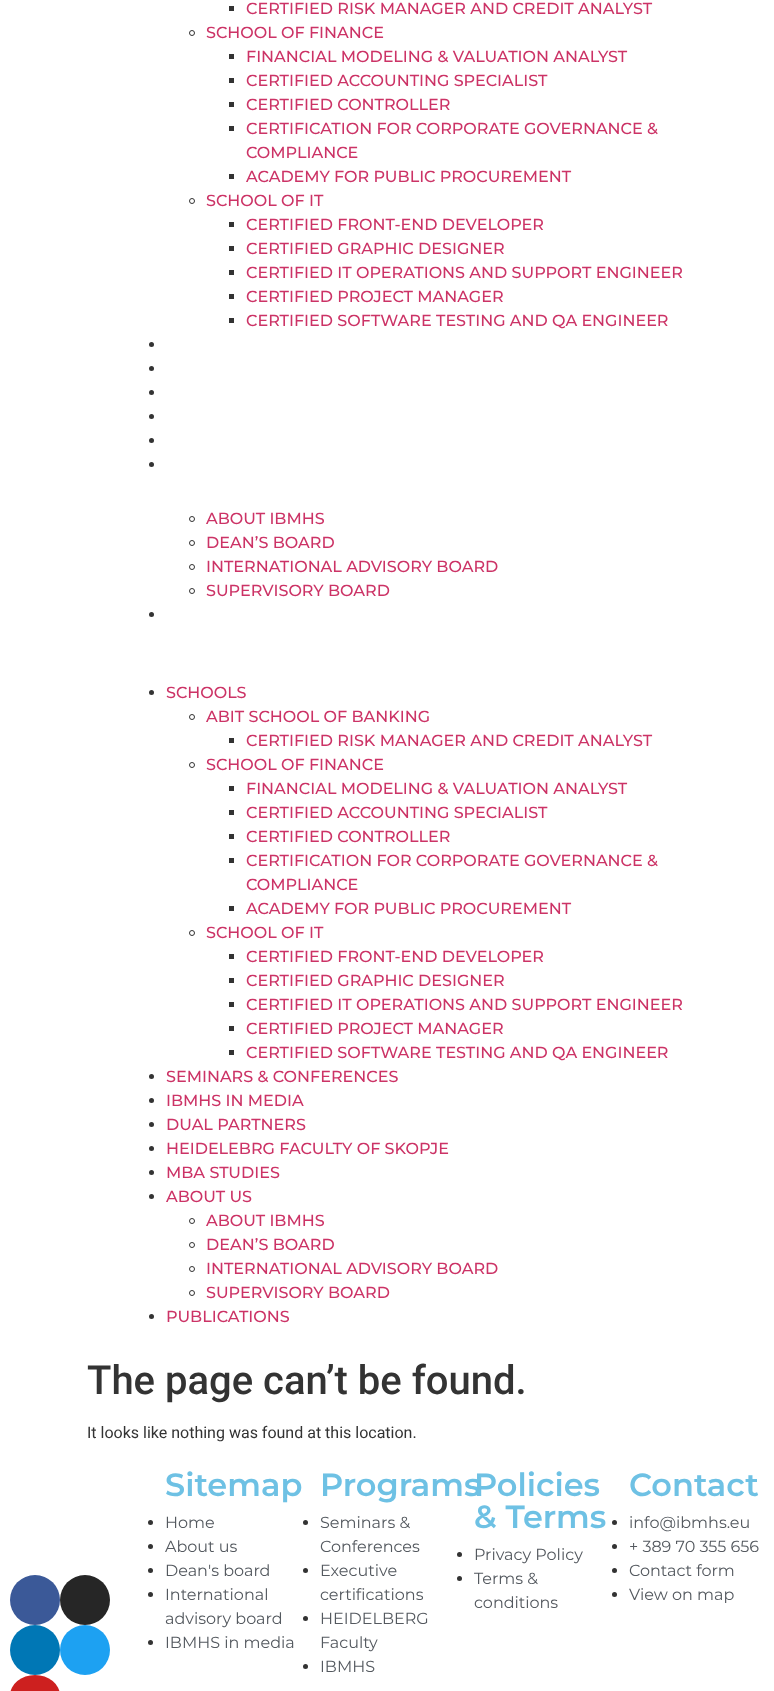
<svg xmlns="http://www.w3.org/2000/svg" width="774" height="1691">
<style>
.a{font:500 16px Montserrat;fill:#c36}
.b{font:500 40px Roboto;fill:#333}
.c{font:16px Roboto;fill:#333}
.d{font:600 32px Montserrat;fill:#6ec1e4}
.e{font:16px Montserrat;fill:#54595f}
</style>
<rect width="100%" height="100%" fill="#fff"/>
<path fill="#333" d="M229 6h5v5H229z"/>
<circle fill="none" stroke="#333" cx="192" cy="33" r="2.5"/>
<path fill="#333" d="M229 54h5v5H229z"/>
<path fill="#333" d="M229 78h5v5H229z"/>
<path fill="#333" d="M229 102h5v5H229z"/>
<path fill="#333" d="M229 126h5v5H229z"/>
<path fill="#333" d="M229 174h5v5H229z"/>
<circle fill="none" stroke="#333" cx="192" cy="201" r="2.5"/>
<path fill="#333" d="M229 222h5v5H229z"/>
<path fill="#333" d="M229 246h5v5H229z"/>
<path fill="#333" d="M229 270h5v5H229z"/>
<path fill="#333" d="M229 294h5v5H229z"/>
<path fill="#333" d="M229 318h5v5H229z"/>
<circle fill="#333" cx="151.5" cy="344.5" r="2.5"/>
<circle fill="#333" cx="151.5" cy="368.5" r="2.5"/>
<circle fill="#333" cx="151.5" cy="392.5" r="2.5"/>
<circle fill="#333" cx="151.5" cy="416.5" r="2.5"/>
<circle fill="#333" cx="151.5" cy="440.5" r="2.5"/>
<circle fill="#333" cx="151.5" cy="464.5" r="2.5"/>
<circle fill="none" stroke="#333" cx="192" cy="519" r="2.5"/>
<circle fill="none" stroke="#333" cx="192" cy="543" r="2.5"/>
<circle fill="none" stroke="#333" cx="192" cy="567" r="2.5"/>
<circle fill="none" stroke="#333" cx="192" cy="591" r="2.5"/>
<circle fill="#333" cx="151.5" cy="614.5" r="2.5"/>
<circle fill="#333" cx="151.5" cy="692.5" r="2.5"/>
<circle fill="none" stroke="#333" cx="192" cy="717" r="2.5"/>
<path fill="#333" d="M229 738h5v5H229z"/>
<circle fill="none" stroke="#333" cx="192" cy="765" r="2.5"/>
<path fill="#333" d="M229 786h5v5H229z"/>
<path fill="#333" d="M229 810h5v5H229z"/>
<path fill="#333" d="M229 834h5v5H229z"/>
<path fill="#333" d="M229 858h5v5H229z"/>
<path fill="#333" d="M229 906h5v5H229z"/>
<circle fill="none" stroke="#333" cx="192" cy="933" r="2.5"/>
<path fill="#333" d="M229 954h5v5H229z"/>
<path fill="#333" d="M229 978h5v5H229z"/>
<path fill="#333" d="M229 1002h5v5H229z"/>
<path fill="#333" d="M229 1026h5v5H229z"/>
<path fill="#333" d="M229 1050h5v5H229z"/>
<circle fill="#333" cx="151.5" cy="1076.5" r="2.5"/>
<circle fill="#333" cx="151.5" cy="1100.5" r="2.5"/>
<circle fill="#333" cx="151.5" cy="1124.5" r="2.5"/>
<circle fill="#333" cx="151.5" cy="1148.5" r="2.5"/>
<circle fill="#333" cx="151.5" cy="1172.5" r="2.5"/>
<circle fill="#333" cx="151.5" cy="1196.5" r="2.5"/>
<circle fill="none" stroke="#333" cx="192" cy="1221" r="2.5"/>
<circle fill="none" stroke="#333" cx="192" cy="1245" r="2.5"/>
<circle fill="none" stroke="#333" cx="192" cy="1269" r="2.5"/>
<circle fill="none" stroke="#333" cx="192" cy="1293" r="2.5"/>
<circle fill="#333" cx="151.5" cy="1316.5" r="2.5"/>
<circle fill="#333" cx="150.5" cy="1522.5" r="2.5"/>
<circle fill="#333" cx="150.5" cy="1546.5" r="2.5"/>
<circle fill="#333" cx="150.5" cy="1570.5" r="2.5"/>
<circle fill="#333" cx="150.5" cy="1594.5" r="2.5"/>
<circle fill="#333" cx="150.5" cy="1642.5" r="2.5"/>
<circle fill="#333" cx="305.5" cy="1522.5" r="2.5"/>
<circle fill="#333" cx="305.5" cy="1570.5" r="2.5"/>
<circle fill="#333" cx="305.5" cy="1618.5" r="2.5"/>
<circle fill="#333" cx="305.5" cy="1666.5" r="2.5"/>
<circle fill="#333" cx="459.5" cy="1554.5" r="2.5"/>
<circle fill="#333" cx="459.5" cy="1578.5" r="2.5"/>
<circle fill="#333" cx="614.5" cy="1522.5" r="2.5"/>
<circle fill="#333" cx="614.5" cy="1546.5" r="2.5"/>
<circle fill="#333" cx="614.5" cy="1570.5" r="2.5"/>
<circle fill="#333" cx="614.5" cy="1594.5" r="2.5"/>
<circle fill="#3b5998" cx="35" cy="1600" r="25"/>
<circle fill="#262626" cx="85" cy="1600" r="25"/>
<circle fill="#0077b5" cx="35" cy="1650" r="25"/>
<circle fill="#1da1f2" cx="85" cy="1650" r="25"/>
<rect fill="#cd201f" x="10" y="1675" width="50" height="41" rx="25"/>
<text class="a" x="246" y="14">CERTIFIED RISK MANAGER AND CREDIT ANALYST</text>
<text class="a" x="206" y="38">SCHOOL OF FINANCE</text>
<text class="a" x="246" y="62">FINANCIAL MODELING &amp; VALUATION ANALYST</text>
<text class="a" x="246" y="86">CERTIFIED ACCOUNTING SPECIALIST</text>
<text class="a" x="246" y="110">CERTIFIED CONTROLLER</text>
<text class="a" x="246" y="134">CERTIFICATION FOR CORPORATE GOVERNANCE &amp;</text>
<text class="a" x="246" y="158">COMPLIANCE</text>
<text class="a" x="246" y="182">ACADEMY FOR PUBLIC PROCUREMENT</text>
<text class="a" x="206" y="206">SCHOOL OF IT</text>
<text class="a" x="246" y="230">CERTIFIED FRONT-END DEVELOPER</text>
<text class="a" x="246" y="254">CERTIFIED GRAPHIC DESIGNER</text>
<text class="a" x="246" y="278">CERTIFIED IT OPERATIONS AND SUPPORT ENGINEER</text>
<text class="a" x="246" y="302">CERTIFIED PROJECT MANAGER</text>
<text class="a" x="246" y="326">CERTIFIED SOFTWARE TESTING AND QA ENGINEER</text>
<text class="a" x="206" y="524">ABOUT IBMHS</text>
<text class="a" x="206" y="548">DEAN’S BOARD</text>
<text class="a" x="206" y="572">INTERNATIONAL ADVISORY BOARD</text>
<text class="a" x="206" y="596">SUPERVISORY BOARD</text>
<text class="a" x="166" y="698">SCHOOLS</text>
<text class="a" x="206" y="722">ABIT SCHOOL OF BANKING</text>
<text class="a" x="246" y="746">CERTIFIED RISK MANAGER AND CREDIT ANALYST</text>
<text class="a" x="206" y="770">SCHOOL OF FINANCE</text>
<text class="a" x="246" y="794">FINANCIAL MODELING &amp; VALUATION ANALYST</text>
<text class="a" x="246" y="818">CERTIFIED ACCOUNTING SPECIALIST</text>
<text class="a" x="246" y="842">CERTIFIED CONTROLLER</text>
<text class="a" x="246" y="866">CERTIFICATION FOR CORPORATE GOVERNANCE &amp;</text>
<text class="a" x="246" y="890">COMPLIANCE</text>
<text class="a" x="246" y="914">ACADEMY FOR PUBLIC PROCUREMENT</text>
<text class="a" x="206" y="938">SCHOOL OF IT</text>
<text class="a" x="246" y="962">CERTIFIED FRONT-END DEVELOPER</text>
<text class="a" x="246" y="986">CERTIFIED GRAPHIC DESIGNER</text>
<text class="a" x="246" y="1010">CERTIFIED IT OPERATIONS AND SUPPORT ENGINEER</text>
<text class="a" x="246" y="1034">CERTIFIED PROJECT MANAGER</text>
<text class="a" x="246" y="1058">CERTIFIED SOFTWARE TESTING AND QA ENGINEER</text>
<text class="a" x="166" y="1082">SEMINARS &amp; CONFERENCES</text>
<text class="a" x="166" y="1106">IBMHS IN MEDIA</text>
<text class="a" x="166" y="1130">DUAL PARTNERS</text>
<text class="a" x="166" y="1154">HEIDELEBRG FACULTY OF SKOPJE</text>
<text class="a" x="166" y="1178">MBA STUDIES</text>
<text class="a" x="166" y="1202">ABOUT US</text>
<text class="a" x="206" y="1226">ABOUT IBMHS</text>
<text class="a" x="206" y="1250">DEAN’S BOARD</text>
<text class="a" x="206" y="1274">INTERNATIONAL ADVISORY BOARD</text>
<text class="a" x="206" y="1298">SUPERVISORY BOARD</text>
<text class="a" x="166" y="1322">PUBLICATIONS</text>
<text class="b" x="87" y="1394">The page can’t be found.</text>
<text class="c" x="87" y="1438">It looks like nothing was found at this location.</text>
<text class="d" x="165" y="1496">Sitemap</text>
<text class="e" x="165" y="1528">Home</text>
<text class="e" x="165" y="1552">About us</text>
<text class="e" x="165" y="1576">Dean's board</text>
<text class="e" x="165" y="1600">International</text>
<text class="e" x="165" y="1624">advisory board</text>
<text class="e" x="165" y="1648">IBMHS in media</text>
<text class="d" x="320" y="1496">Programs</text>
<text class="e" x="320" y="1528">Seminars &amp;</text>
<text class="e" x="320" y="1552">Conferences</text>
<text class="e" x="320" y="1576">Executive</text>
<text class="e" x="320" y="1600">certifications</text>
<text class="e" x="320" y="1624">HEIDELBERG</text>
<text class="e" x="320" y="1648">Faculty</text>
<text class="e" x="320" y="1672">IBMHS</text>
<text class="d" x="474" y="1496">Policies</text>
<text class="d" x="474" y="1528">&amp; Terms</text>
<text class="e" x="474" y="1560">Privacy Policy</text>
<text class="e" x="474" y="1584">Terms &amp;</text>
<text class="e" x="474" y="1608">conditions</text>
<text class="d" x="629" y="1496">Contact</text>
<text class="e" x="629" y="1528">info@ibmhs.eu</text>
<text class="e" x="629" y="1552">+ 389 70 355 656</text>
<text class="e" x="629" y="1576">Contact form</text>
<text class="e" x="629" y="1600">View on map</text>
</svg>
